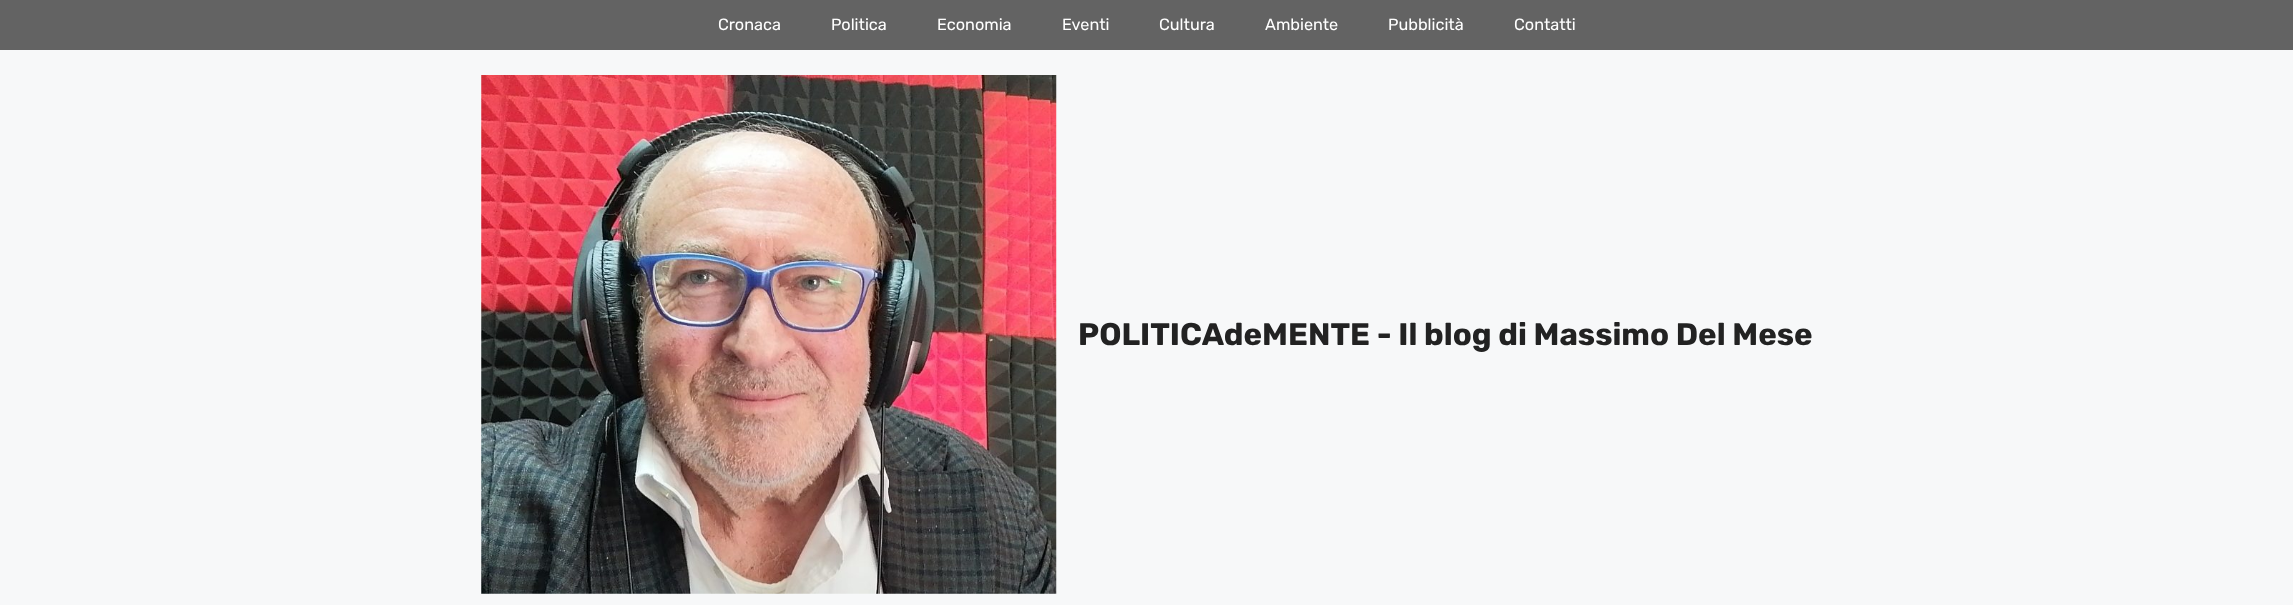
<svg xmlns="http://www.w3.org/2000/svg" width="2293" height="605">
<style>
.a{font:300 16.25px Rubik;fill:#fff}
.b{font:300 31.25px 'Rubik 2';fill:#222}
</style>
<rect width="100%" height="100%" fill="#636363"/>
<path fill="#f7f8f9" d="M0 50h2293v555H0z"/>
<image href="1.png" x="481" y="75" width="576" height="519"/>
<text class="a" x="718" y="30">Cronaca</text>
<text class="a" x="831" y="30">Politica</text>
<text class="a" x="937" y="30">Economia</text>
<text class="a" x="1062" y="30">Eventi</text>
<text class="a" x="1159" y="30">Cultura</text>
<text class="a" x="1265" y="30">Ambiente</text>
<text class="a" x="1388" y="30">Pubblicità</text>
<text class="a" x="1514" y="30">Contatti</text>
<text class="b" x="1078" y="345">POLITICAdeMENTE - Il blog di Massimo Del Mese</text>
</svg>
